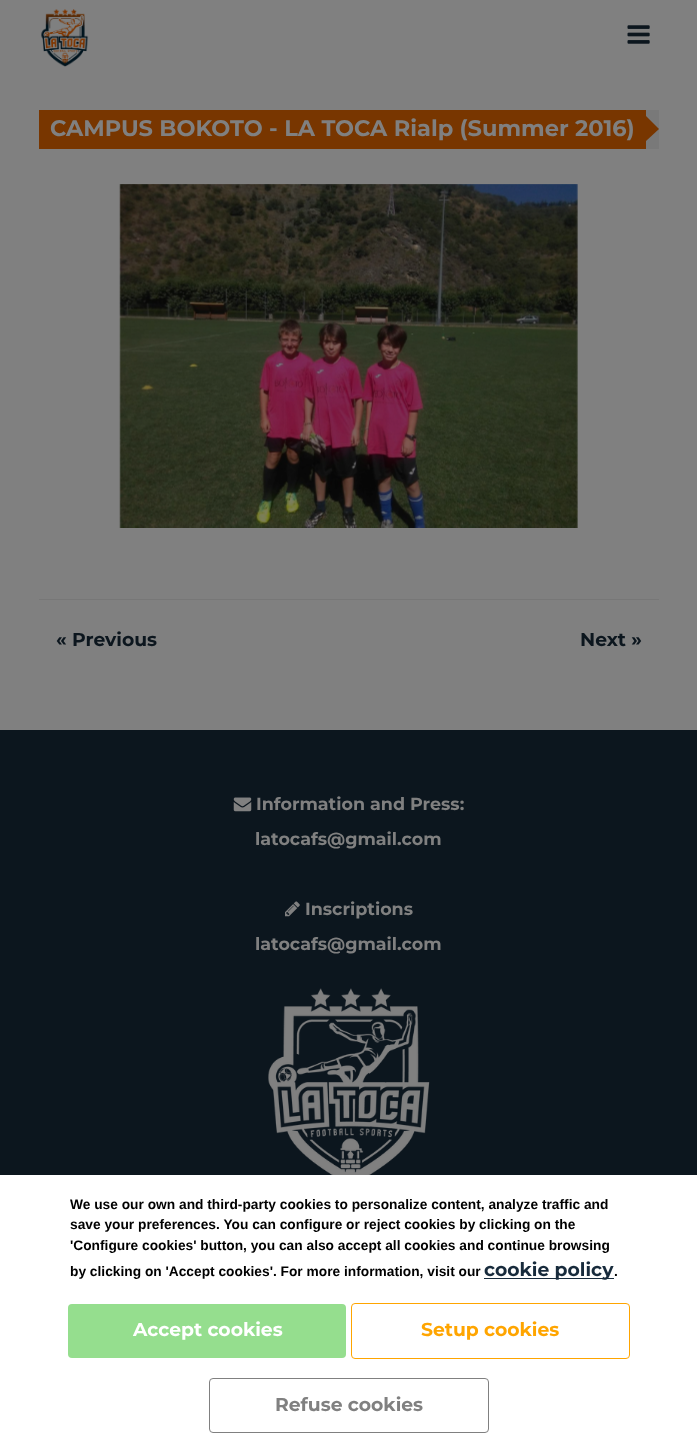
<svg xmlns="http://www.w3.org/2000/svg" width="697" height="1451">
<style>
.a{font:bold 22.5px Montserrat;fill:#808080}
.b{font:bold 18.75px Montserrat;fill:#0c161e}
.c{font:bold 17.5px Montserrat;fill:#808080}
.d{font:bold 13.75px Liberation Sans;fill:#000}
.e{font:bold 18.75px Montserrat;fill:#182b3c}
.f{font:bold 18.75px Montserrat;fill:#fff}
.g{font:bold 18.75px Montserrat;fill:#ffa500}
.h{font:bold 18.75px Montserrat;fill:#808080}
</style>
<rect width="100%" height="100%" fill="#808080"/>
<image href="1.png" x="41" y="9" width="48" height="58"/>
<image href="2.png" x="627" y="25" width="23" height="19"/>
<path fill="#797979" d="M646 110h13v39H646z"/>
<path fill="#783600" d="M39 110h607v39H39z"/>
<path fill="#783600" d="M646 141v-25l13 13z"/>
<image href="3.png" x="119" y="184" width="459" height="344"/>
<path fill="#777" d="M39 599h620v1H39z"/>
<path fill="#0c161e" d="M0 730h697v445H0z"/>
<image href="4.png" x="233" y="797" width="19" height="15"/>
<image href="5.png" x="285" y="901" width="15" height="16"/>
<image href="6.png" x="268" y="988" width="162" height="187"/>
<path fill="#fff" d="M0 1175h697v276H0z"/>
<path fill="#182b3c" d="M484 1278h130v1H484z"/>
<rect fill="#95de8e" x="68" y="1304" width="278" height="54" rx="4"/>
<rect fill="none" stroke="#ffa500" x="351.5" y="1303.5" width="278" height="55" rx="3.5"/>
<rect fill="none" stroke="#808080" x="209.5" y="1378.5" width="279" height="54" rx="3.5"/>
<text class="a" x="50" y="136">CAMPUS BOKOTO - LA TOCA Rialp (Summer 2016)</text>
<text class="b" x="56" y="646">« Previous</text>
<text class="b" x="580" y="646">Next »</text>
<text class="c" x="256" y="810">Information and Press:</text>
<text class="c" x="255" y="845">latocafs@gmail.com</text>
<text class="c" x="305" y="915">Inscriptions</text>
<text class="c" x="255" y="950">latocafs@gmail.com</text>
<text class="d" x="70" y="1209">We use our own and third-party cookies to personalize content, analyze traffic and</text>
<text class="d" x="70" y="1229">save your preferences. You can configure or reject cookies by clicking on the</text>
<text class="d" x="70" y="1250">'Configure cookies' button, you can also accept all cookies and continue browsing</text>
<text class="d" x="70" y="1276">by clicking on 'Accept cookies'. For more information, visit our</text>
<text class="e" x="484" y="1276">cookie policy</text>
<text class="d" x="614" y="1276">.</text>
<text class="f" x="133" y="1336">Accept cookies</text>
<text class="g" x="421" y="1336">Setup cookies</text>
<text class="h" x="275" y="1411">Refuse cookies</text>
</svg>
